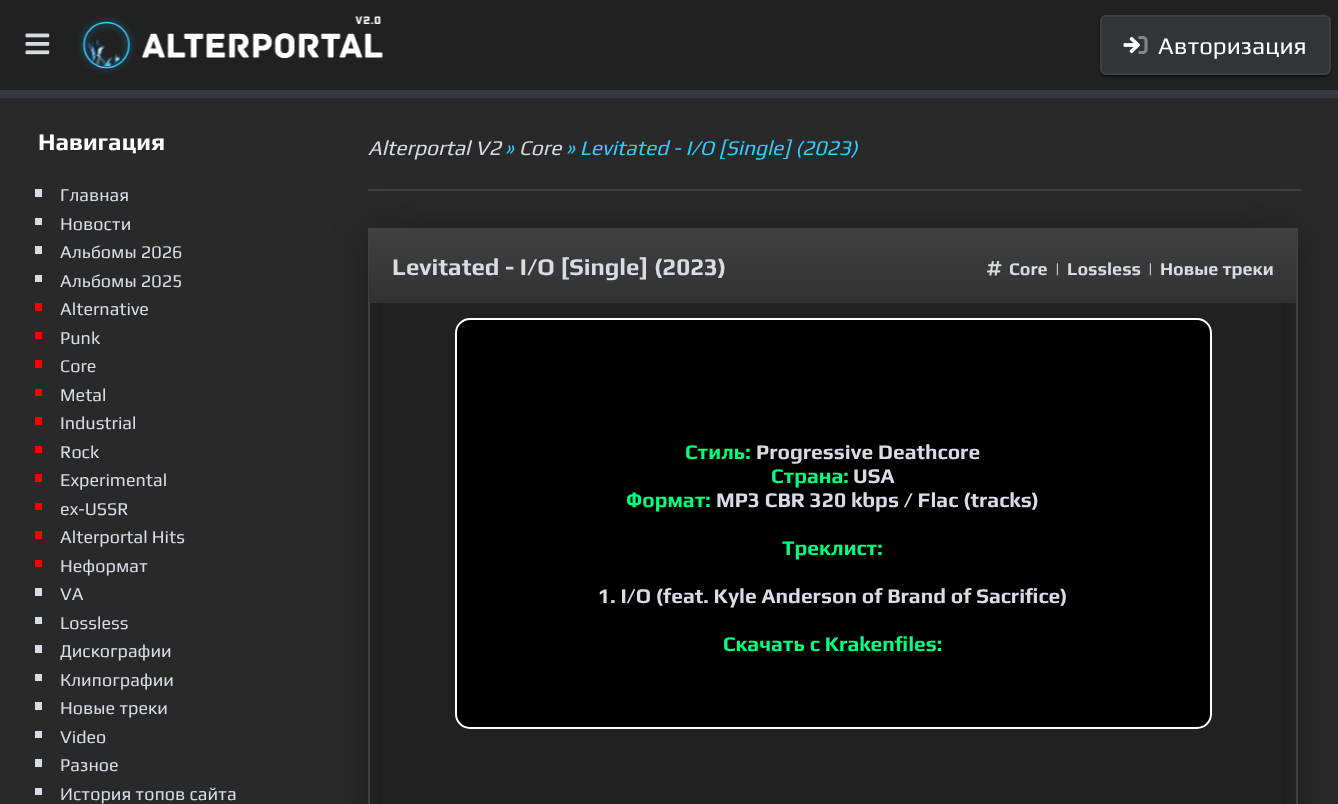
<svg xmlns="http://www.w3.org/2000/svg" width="1338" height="804">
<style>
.a{font:24px Play;fill:#fff}
.b{font:bold 24px Play;fill:#fff}
.c{font:18px Play;fill:#d9dce4}
.d{font:italic 21px Play;fill:#d9dce4}
.e{font:italic 21px Play;fill:#3cf}
.f{font:bold 24px Play;fill:#d9dce4}
.g{font:bold 18px Play;fill:#d9dce4}
.h{font:bold 21px Play;fill:#00ff7f}
.i{font:bold 21px Play;fill:#d9dce4}
</style>
<defs>
<clipPath id="clip1"><path d="M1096 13h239v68h-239zm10 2h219c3.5 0 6 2.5 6 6v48c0 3.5-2.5 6-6 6h-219c-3.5 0-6-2.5-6-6v-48c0-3.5 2.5-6 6-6z" clip-rule="evenodd"/></clipPath>
<linearGradient id="g1" gradientUnits="userSpaceOnUse" x1="833" y1="303" x2="833" y2="230"><stop offset="0" stop-color="#323232"/><stop offset="1" stop-color="#404040"/></linearGradient>
</defs>
<rect width="100%" height="100%" fill="#292929"/>
<path fill="#212121" d="M0 0h1338v90H0z"/>
<path fill="#35383d" d="M0 90h1338v8H0z"/>
<image href="1.png" x="25" y="33" width="25" height="22"/>
<image href="2.png" x="77" y="16" width="306" height="59"/>
<g clip-path="url(#clip1)">
<rect fill="#111" filter="blur(1px)" x="1100" y="17" width="231" height="60" rx="6"/>
</g>
<rect fill="#5e61664d" stroke="#404040" stroke-width="2" x="1101" y="16" width="229" height="58" rx="5"/>
<image href="3.png" x="1123" y="36" width="17" height="18"/>
<image href="4.png" x="1138" y="36" width="10" height="18"/>
<path fill="#d9dce4" d="M35 189h7v8H35z"/>
<path fill="#d9dce4" d="M35 218h7v7H35z"/>
<path fill="#d9dce4" d="M35 246h7v8H35z"/>
<path fill="#d9dce4" d="M35 275h7v7H35z"/>
<path fill="#f00" d="M35 303h7v8H35z"/>
<path fill="#f00" d="M35 332h7v7H35z"/>
<path fill="#f00" d="M35 360h7v8H35z"/>
<path fill="#f00" d="M35 389h7v7H35z"/>
<path fill="#f00" d="M35 417h7v8H35z"/>
<path fill="#f00" d="M35 446h7v7H35z"/>
<path fill="#f00" d="M35 474h7v8H35z"/>
<path fill="#f00" d="M35 503h7v7H35z"/>
<path fill="#f00" d="M35 531h7v8H35z"/>
<path fill="#f00" d="M35 560h7v7H35z"/>
<path fill="#d9dce4" d="M35 588h7v8H35z"/>
<path fill="#d9dce4" d="M35 617h7v7H35z"/>
<path fill="#d9dce4" d="M35 645h7v8H35z"/>
<path fill="#d9dce4" d="M35 674h7v7H35z"/>
<path fill="#d9dce4" d="M35 702h7v8H35z"/>
<path fill="#d9dce4" d="M35 731h7v7H35z"/>
<path fill="#d9dce4" d="M35 759h7v8H35z"/>
<path fill="#d9dce4" d="M35 788h7v7H35z"/>
<path fill="#404040" d="M368 189h933v2H368z"/>
<rect fill="#191919" filter="blur(19px)" x="375" y="236" width="915" height="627" rx="1.5"/>
<path fill="#212121" d="M383 303h899v501H383z"/>
<path fill="none" stroke="#404040" stroke-width="2" d="M369 229h928v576H369z"/>
<path fill="url(#g1)" d="M369 230h927v73H369z"/>
<image href="5.png" x="987" y="261" width="15" height="15"/>
<rect fill="#000" stroke="#fff" stroke-width="2" x="456" y="319" width="755" height="409" rx="14"/>
<text class="a" x="1158" y="54">Авторизация</text>
<text class="b" x="38" y="150">Навигация</text>
<text class="c" x="60" y="201">Главная</text>
<text class="c" x="60" y="230">Новости</text>
<text class="c" x="60" y="258">Альбомы 2026</text>
<text class="c" x="60" y="287">Альбомы 2025</text>
<text class="c" x="60" y="315">Alternative</text>
<text class="c" x="60" y="344">Punk</text>
<text class="c" x="60" y="372">Сore</text>
<text class="c" x="60" y="401">Metal</text>
<text class="c" x="60" y="429">Industrial</text>
<text class="c" x="60" y="458">Rock</text>
<text class="c" x="60" y="486">Experimental</text>
<text class="c" x="60" y="515">ex-USSR</text>
<text class="c" x="60" y="543">Alterportal Hits</text>
<text class="c" x="60" y="572">Неформат</text>
<text class="c" x="60" y="600">VA</text>
<text class="c" x="60" y="629">Lossless</text>
<text class="c" x="60" y="657">Дискографии</text>
<text class="c" x="60" y="686">Клипографии</text>
<text class="c" x="60" y="714">Новые треки</text>
<text class="c" x="60" y="743">Video</text>
<text class="c" x="60" y="771">Разное</text>
<text class="c" x="60" y="800">История топов сайта</text>
<text class="d" x="368" y="155">Alterportal V2</text>
<text class="e" x="505" y="155">»</text>
<text class="d" x="519" y="155">Сore</text>
<text class="e" x="566" y="155">» Levitated - I/O [Single] (2023)</text>
<text class="f" x="392" y="275">Levitated - I/O [Single] (2023)</text>
<text class="g" x="1009" y="275">Сore</text>
<text class="g" x="1055" y="275">|</text>
<text class="g" x="1067" y="275">Lossless</text>
<text class="g" x="1148" y="275">|</text>
<text class="g" x="1160" y="275">Новые треки</text>
<text class="h" x="685" y="459">Стиль:</text>
<text class="i" x="756" y="459">Progressive Deathcore</text>
<text class="h" x="771" y="483">Страна:</text>
<text class="i" x="853" y="483">USA</text>
<text class="h" x="626" y="507">Формат:</text>
<text class="i" x="716" y="507">MP3 CBR 320 kbps / Flac (tracks)</text>
<text class="h" x="782" y="555">Треклист:</text>
<text class="i" x="598" y="603">1. I/O (feat. Kyle Anderson of Brand of Sacrifice)</text>
<text class="h" x="723" y="651">Скачать с Krakenfiles:</text>
</svg>
